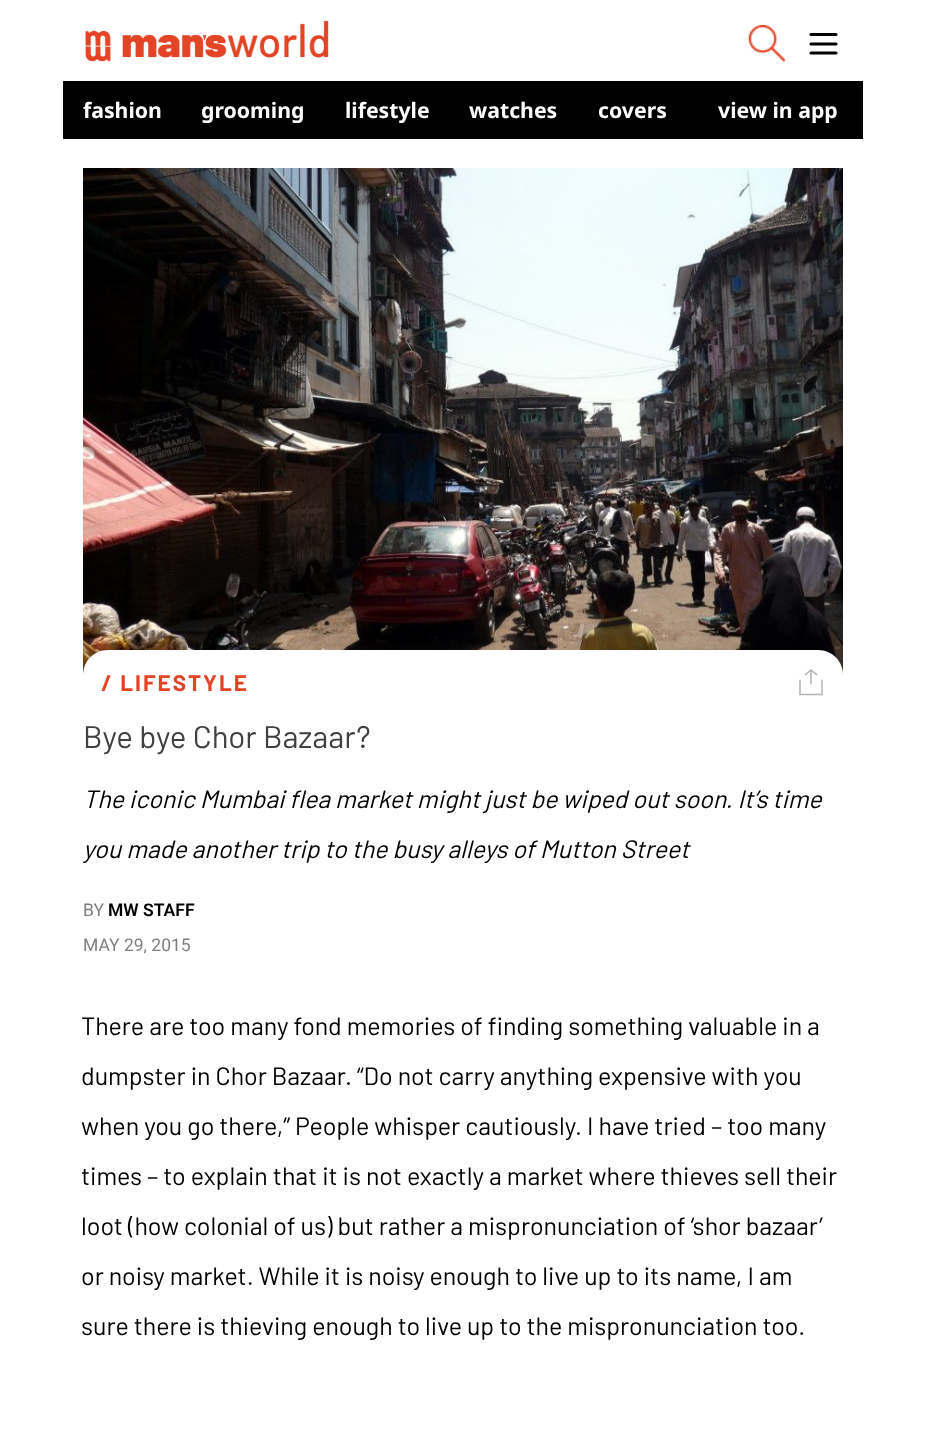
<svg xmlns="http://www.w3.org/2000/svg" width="925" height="1430">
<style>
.a{font:bold 21.25px Noto Sans;fill:#fff}
.b{font:bold 22.5px Barlow;letter-spacing:2px;fill:#e34426}
.c{font:31.25px Barlow;fill:#404040}
.d{font:italic 25px Barlow;fill:#000}
.e{font:17.5px Roboto;fill:#808080}
.f{font:600 17.5px Roboto;fill:#000}
.g{font:25px Barlow;fill:#000}
</style>
<rect width="100%" height="100%" fill="#fff"/>
<image href="1.png" x="85" y="20" width="244" height="42"/>
<image href="2.png" x="748" y="25" width="38" height="38"/>
<path fill="none" stroke="#000" stroke-width="3.1" stroke-linecap="round" stroke-linejoin="round" d="M811 34.5h25m-25 9.5h25m-25 9h25"/>
<path fill="#000" d="M63 81h800v58H63z"/>
<image href="3.png" x="83" y="168" width="760" height="507"/>
<path fill="#fff" d="M108 650h710c14 0 25 11 25 25v43h-760v-43c0-14 11-25 25-25z"/>
<path fill="none" stroke="#b3b3b3" stroke-width="1.5" stroke-linecap="square" d="M800 680.5v14h22v-14m-11-8.5v11.5m-5.5-9l5.5-4.5l5.5 4.5"/>
<text class="a" x="83" y="118">fashion</text>
<text class="a" x="201" y="118">grooming</text>
<text class="a" x="345" y="118">lifestyle</text>
<text class="a" x="469" y="118">watches</text>
<text class="a" x="598" y="118">covers</text>
<text class="a" x="718" y="118">view in app</text>
<text class="b" x="101" y="691">/ LIFESTYLE</text>
<text class="c" x="83" y="748">Bye bye Chor Bazaar?</text>
<text class="d" x="83" y="808">The iconic Mumbai flea market might just be wiped out soon. It’s time</text>
<text class="d" x="83" y="858">you made another trip to the busy alleys of Mutton Street</text>
<text class="e" x="83" y="916">BY</text>
<text class="f" x="108" y="916">MW STAFF</text>
<text class="e" x="83" y="951">MAY 29, 2015</text>
<text class="g" x="81" y="1035">There are too many fond memories of finding something valuable in a</text>
<text class="g" x="81" y="1085">dumpster in Chor Bazaar. “Do not carry anything expensive with you</text>
<text class="g" x="81" y="1135">when you go there,” People whisper cautiously. I have tried – too many</text>
<text class="g" x="81" y="1185">times – to explain that it is not exactly a market where thieves sell their</text>
<text class="g" x="81" y="1235">loot (how colonial of us) but rather a mispronunciation of ‘shor bazaar’</text>
<text class="g" x="81" y="1285">or noisy market. While it is noisy enough to live up to its name, I am</text>
<text class="g" x="81" y="1335">sure there is thieving enough to live up to the mispronunciation too.</text>
</svg>
